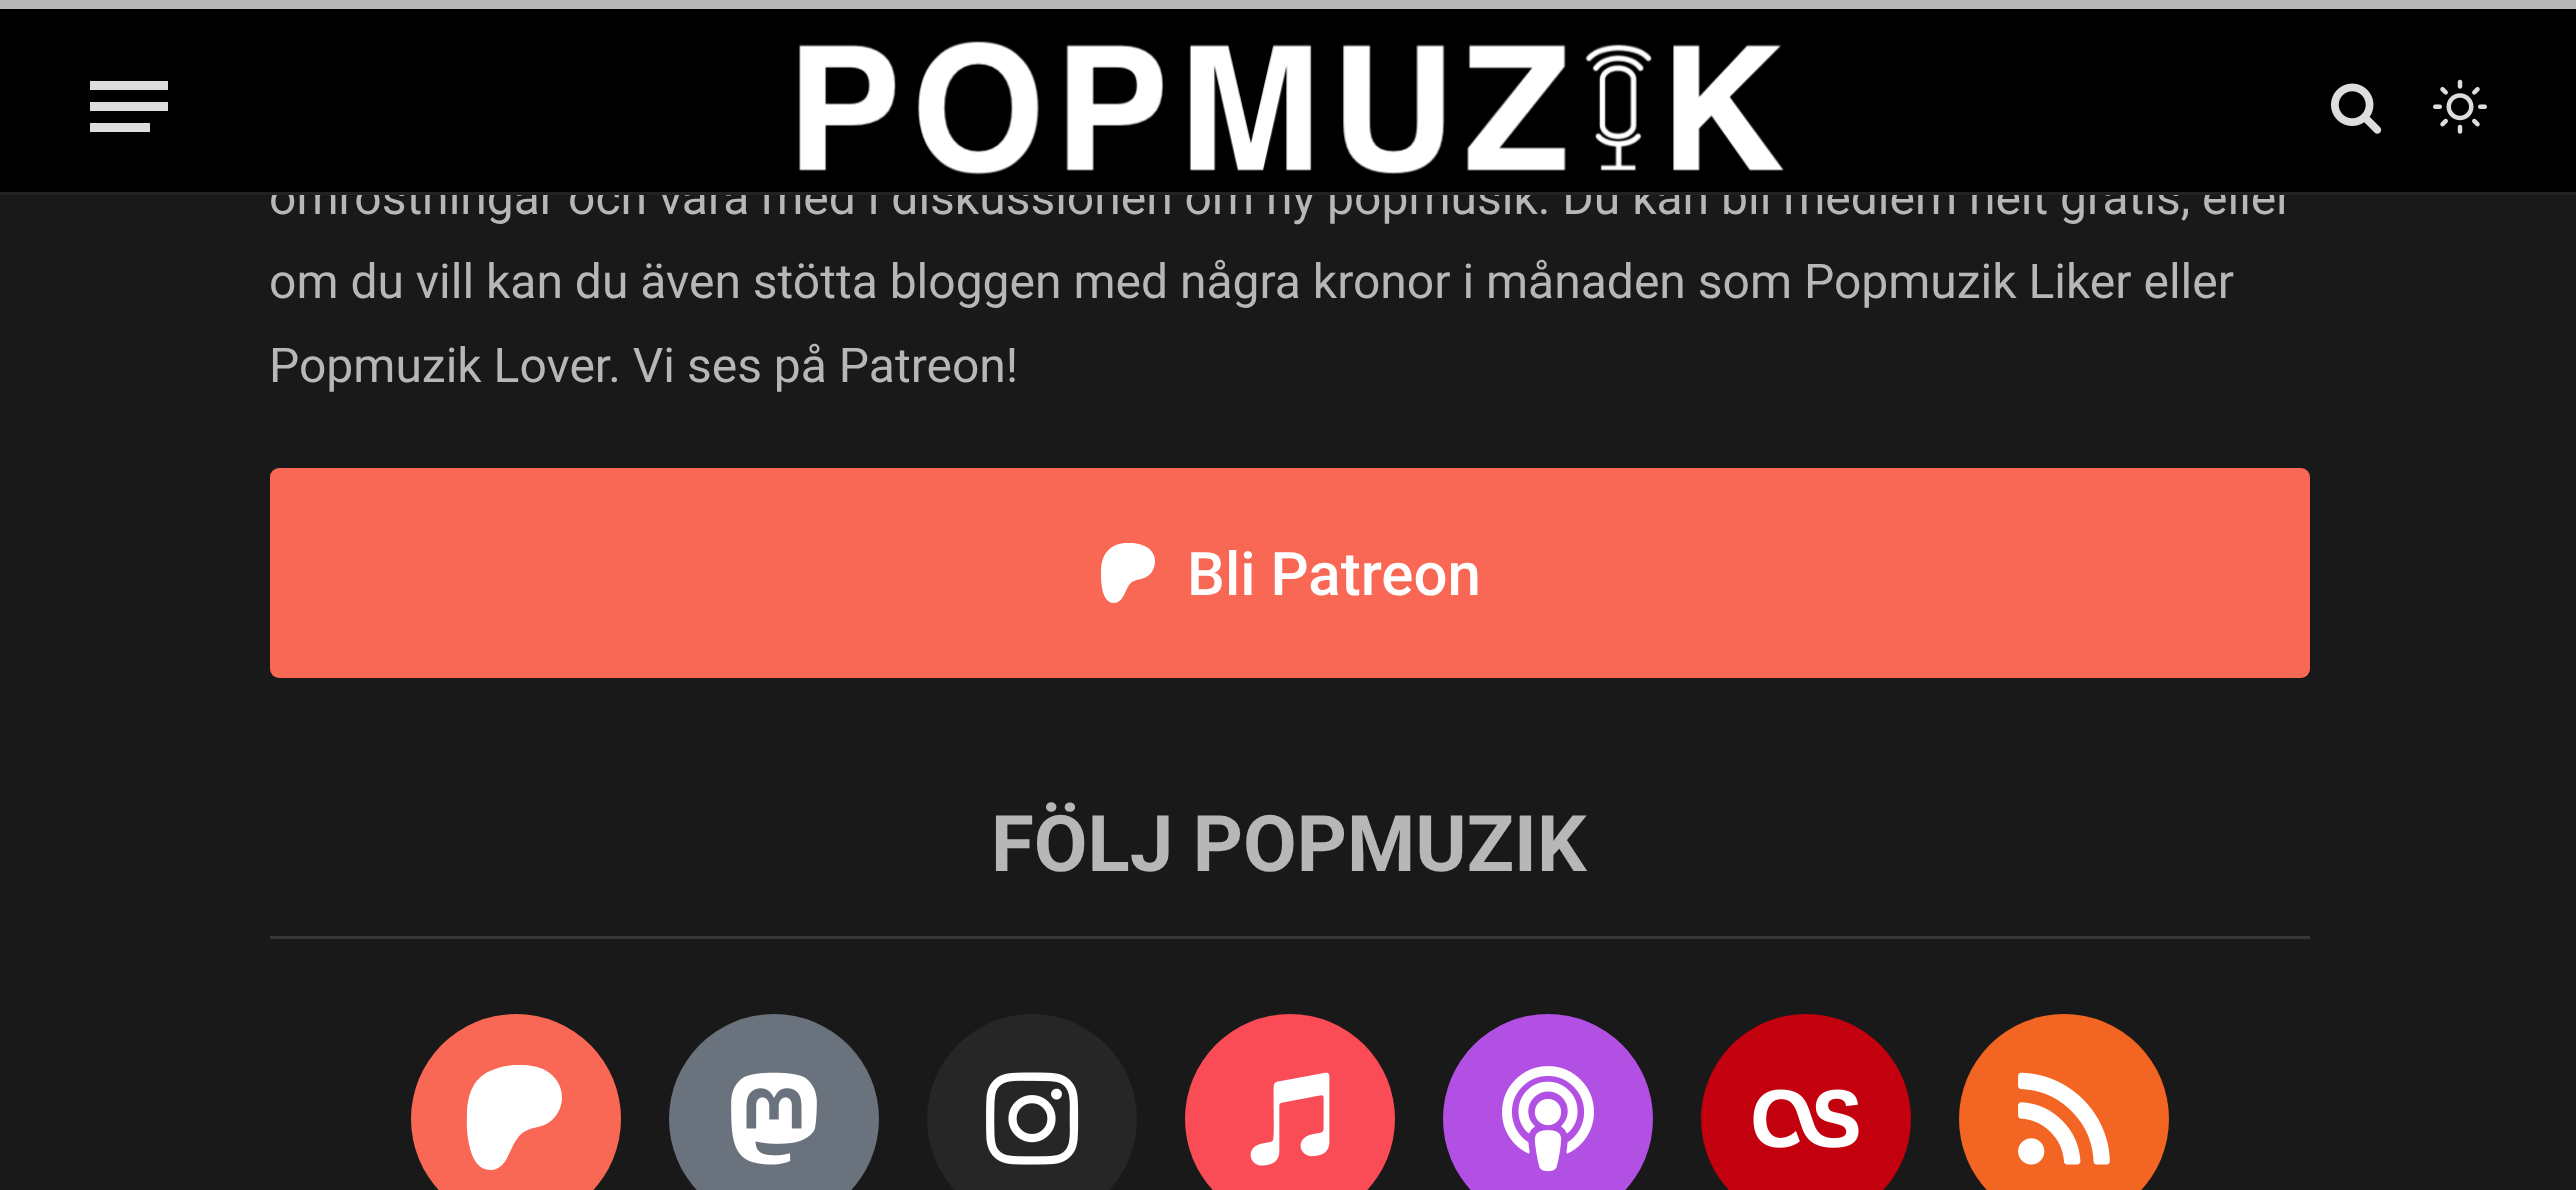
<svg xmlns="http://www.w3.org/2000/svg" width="2576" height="1190">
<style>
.a{font:48px Roboto;fill:#b7b7b7}
.b{font:500 60px Roboto;fill:#fff}
.c{font:bold 78px Roboto;fill:#b7b7b7}
</style>
<defs>
<clipPath id="clip1"><path d="M1098 543h60v60H1098z"/></clipPath>
<clipPath id="clip2"><path d="M462 1065h105v105H462z"/></clipPath>
</defs>
<rect width="100%" height="100%" fill="#191919"/>
<path fill="#b7b7b7" d="M0 0h2576v9H0z"/>
<rect fill="#f96854" x="270" y="468" width="2040" height="210" rx="9"/>
<g clip-path="url(#clip1)">
<path fill="#fff" d="M1155 561c0-8-6-14-13-16c-8-3-20-3-28 1c-10 5-13 15-13 26c0 8 0 31 13 31c9 0 11-12 15-18c3-4 7-5 12-6c9-2 14-9 14-18z"/>
</g>
<path fill="#373737" d="M270 936h2040v3H270z"/>
<circle fill="#f96854" cx="516" cy="1119" r="105"/>
<g clip-path="url(#clip2)">
<path fill="#fff" d="M562 1097c0-14-10-25-22-29c-15-5-36-4-50 3c-18 8-23 26-23 44c-1 15 1 55 23 55c17 0 19-21 27-31c5-8 12-10 21-12c14-3 24-15 24-30z"/>
</g>
<circle fill="#69727d" cx="774" cy="1119" r="105"/>
<image href="4.png" x="731" y="1072" width="86" height="93"/>
<circle fill="#262626" cx="1032" cy="1119" r="105"/>
<image href="5.png" x="986" y="1072" width="93" height="93"/>
<circle fill="#f94c57" cx="1290" cy="1119" r="105"/>
<image href="6.png" x="1250" y="1072" width="80" height="94"/>
<circle fill="#b150e2" cx="1548" cy="1119" r="105"/>
<image href="7.png" x="1502" y="1066" width="92" height="106"/>
<circle fill="#c3000d" cx="1806" cy="1119" r="105"/>
<image href="8.png" x="1753" y="1089" width="106" height="59"/>
<circle fill="#f26522" cx="2064" cy="1119" r="105"/>
<image href="9.png" x="2018" y="1072" width="92" height="93"/>
<text class="a" x="269" y="214">omröstningar och vara med i diskussionen om ny popmusik. Du kan bli medlem helt gratis, eller</text>
<path fill="#000" d="M0 9h2576v183H0z"/>
<image href="3.png" x="2433" y="79" width="54" height="55"/>
<path fill="#ddd" d="M90 102h78v9H90z"/>
<path fill="#ddd" d="M90 81h78v9H90z"/>
<path fill="#ddd" d="M90 123h60v9H90z"/>
<image href="2.png" x="2331" y="83" width="51" height="51"/>
<image href="1.png" x="799" y="41" width="985" height="134"/>
<path fill="#222" d="M0 192h2576v3H0z"/>
<text class="a" x="269" y="298">om du vill kan du även stötta bloggen med några kronor i månaden som Popmuzik Liker eller</text>
<text class="a" x="269" y="382">Popmuzik Lover. Vi ses på Patreon!</text>
<text class="b" x="1187" y="595">Bli Patreon</text>
<text class="c" x="991" y="871">FÖLJ POPMUZIK</text>
</svg>
